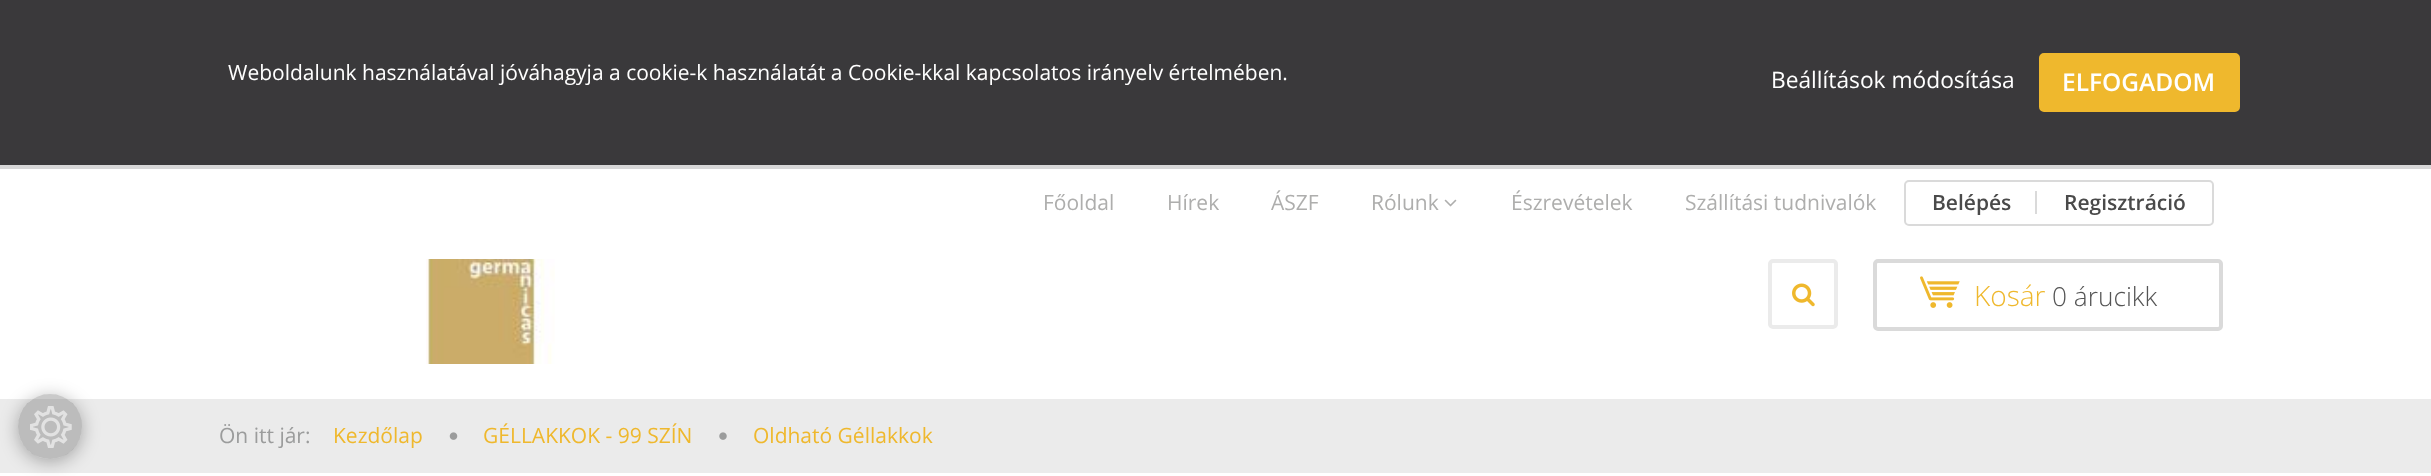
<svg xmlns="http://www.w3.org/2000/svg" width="2431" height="476">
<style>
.a{font:21px Open Sans;fill:#fff}
.b{font:22.75px Open Sans;fill:#fff}
.c{font:600 24.5px Open Sans;fill:#fff}
.d{font:21px Open Sans;fill:#aeaead}
.e{font:600 21px Open Sans;fill:#4a4a4a}
.f{font:300 28px Open Sans;fill:#efb82d}
.g{font:300 26.25px Open Sans;fill:#555}
.h{font:21px Open Sans;fill:#9b9c9c}
.i{font:21px Open Sans;fill:#efb82d}
</style>
<defs>
<clipPath id="clip1"><path d="M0 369h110v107h-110zm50 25c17.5 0 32 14.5 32 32v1c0 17.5-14.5 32-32 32c-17.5 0-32-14.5-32-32v-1c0-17.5 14.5-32 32-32z" clip-rule="evenodd"/></clipPath>
</defs>
<rect width="100%" height="100%" fill="#fff"/>
<path fill="#3a393b" d="M0 0h2431v165H0z"/>
<rect fill="#efb82d" stroke="#efb82d" stroke-width="4" x="2041" y="55" width="197" height="55" rx="3"/>
<path fill="#ebebeb" d="M0 399h2431v74H0z"/>
<g clip-path="url(#clip1)">
<rect fill="#0000004d" filter="blur(9px)" x="18" y="397" width="64" height="65" rx="32"/>
</g>
<rect fill="#4e4e4e4d" x="18" y="394" width="64" height="65" rx="32"/>
<image href="1.png" x="30" y="406" width="42" height="42"/>
<path fill="#d7d7d7" d="M0 165h2431v4H0z"/>
<image href="2.png" x="1444" y="199" width="13" height="8"/>
<rect fill="none" stroke="#dadada" stroke-width="2" x="1905" y="181" width="308" height="44" rx="4"/>
<path fill="#dadada" d="M2035 191h2v23H2035z"/>
<image href="3.png" x="426" y="259" width="129" height="105"/>
<rect fill="none" stroke="#ebebeb" stroke-width="4" x="1770" y="261" width="66" height="66" rx="3"/>
<image href="4.png" x="1792" y="283" width="23" height="24"/>
<rect fill="none" stroke="#dadada" stroke-width="4" x="1875" y="261" width="346" height="68" rx="3"/>
<image href="5.png" x="1920" y="276" width="40" height="32"/>
<image href="6.png" x="449" y="432" width="9" height="8"/>
<image href="7.png" x="719" y="432" width="8" height="8"/>
<text class="a" x="228" y="80">Weboldalunk használatával jóváhagyja a cookie-k használatát a Cookie-kkal kapcsolatos irányelv értelmében.</text>
<text class="b" x="1771" y="88">Beállítások módosítása</text>
<text class="c" x="2062" y="91">ELFOGADOM</text>
<text class="d" x="1043" y="210">Főoldal</text>
<text class="d" x="1167" y="210">Hírek</text>
<text class="d" x="1271" y="210">ÁSZF</text>
<text class="d" x="1371" y="210">Rólunk</text>
<text class="d" x="1511" y="210">Észrevételek</text>
<text class="d" x="1685" y="210">Szállítási tudnivalók</text>
<text class="e" x="1932" y="210">Belépés</text>
<text class="e" x="2064" y="210">Regisztráció</text>
<text class="f" x="1974" y="306">Kosár</text>
<text class="g" x="2052" y="306">0 árucikk</text>
<text class="h" x="219" y="443">Ön itt jár:</text>
<text class="i" x="333" y="443">Kezdőlap</text>
<text class="i" x="483" y="443">GÉLLAKKOK - 99 SZÍN</text>
<text class="i" x="753" y="443">Oldható Géllakkok</text>
</svg>
